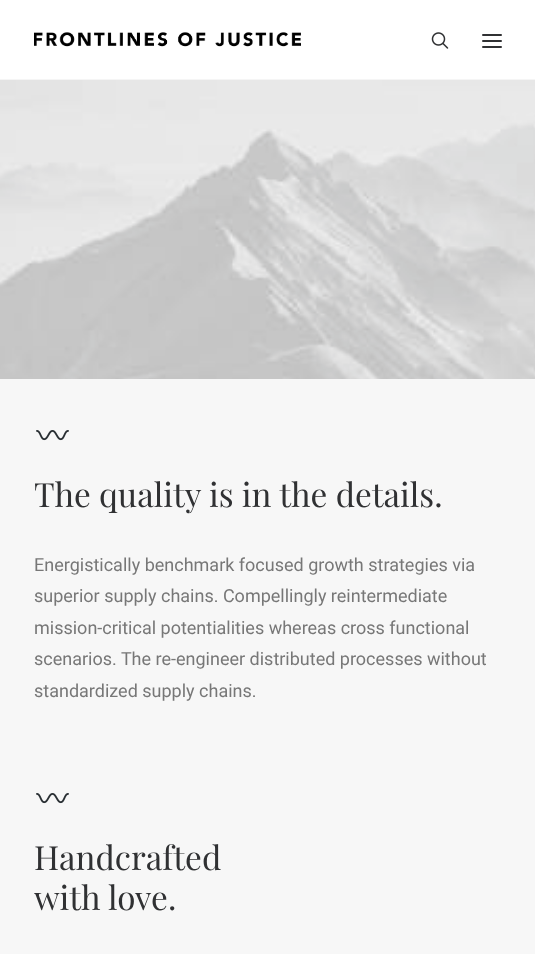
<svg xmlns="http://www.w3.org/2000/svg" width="535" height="954">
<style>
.a{font:33.25px Playfair Display;fill:#303133}
.b{font:18px Roboto;fill:#777}
</style>
<rect width="100%" height="100%" fill="#fff"/>
<path fill="#f5f5f5" d="M0 79h535v1H0z"/>
<image href="1.png" x="34" y="32" width="267" height="15"/>
<image href="2.png" x="431" y="32" width="18" height="17"/>
<rect fill="#303133" x="482" y="40" width="20" height="2" rx="1"/>
<rect fill="#303133" x="482" y="34" width="20" height="2" rx="1"/>
<rect fill="#303133" x="482" y="46" width="20" height="2" rx="1"/>
<image href="3.png" x="0" y="80" width="535" height="299"/>
<path fill="#f7f7f7" d="M0 379h535v575H0z"/>
<image href="4.png" x="36" y="430" width="33" height="11"/>
<image href="4.png" x="36" y="793" width="33" height="11"/>
<text class="a" x="34" y="507">The quality is in the details.</text>
<text class="b" x="34" y="571">Energistically benchmark focused growth strategies via</text>
<text class="b" x="34" y="602">superior supply chains. Compellingly reintermediate</text>
<text class="b" x="34" y="634">mission-critical potentialities whereas cross functional</text>
<text class="b" x="34" y="665">scenarios. The re-engineer distributed processes without</text>
<text class="b" x="34" y="697">standardized supply chains.</text>
<text class="a" x="34" y="870">Handcrafted</text>
<text class="a" x="34" y="910">with love.</text>
</svg>
